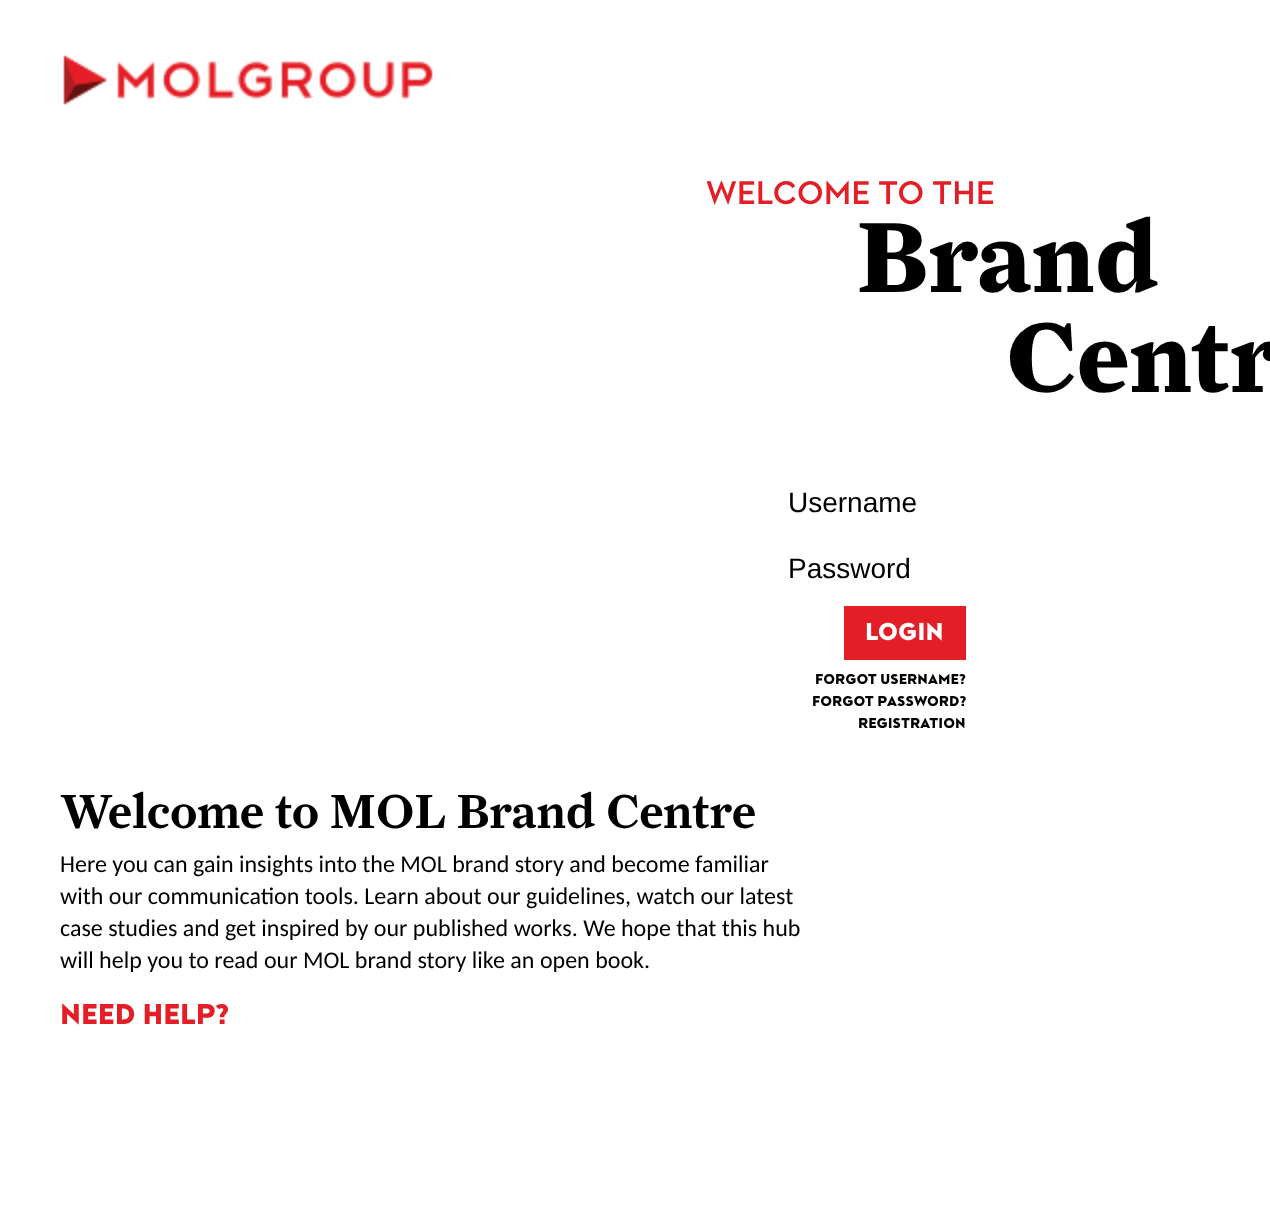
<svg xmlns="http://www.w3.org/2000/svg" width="1270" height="1219">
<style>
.a{font:32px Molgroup;fill:#e41e26}
.b{font:bold 100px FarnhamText;fill:#000}
.c{font:28px Liberation Sans;fill:#000}
.d{font:900 24px Molgroup;fill:#fff}
.e{font:900 14px Molgroup;fill:#000}
.f{font:600 48px FarnhamText;fill:#000}
.g{font:24px Carlito;fill:#000}
.h{font:900 28px Molgroup;fill:#e41e26}
</style>
<rect width="100%" height="100%" fill="#fff"/>
<image href="1.png" x="63" y="55" width="370" height="50"/>
<path fill="#e41e26" d="M844 606h122v54H844z"/>
<text class="a" x="706" y="204">WELCOME TO THE</text>
<text class="b" x="856" y="292">Brand</text>
<text class="b" x="1006" y="392">Centr</text>
<text class="c" x="788" y="512">Username</text>
<text class="c" x="788" y="578">Password</text>
<text class="d" x="865" y="640">LOGIN</text>
<text class="e" x="815" y="684">FORGOT USERNAME?</text>
<text class="e" x="812" y="706">FORGOT PASSWORD?</text>
<text class="e" x="858" y="728">REGISTRATION</text>
<text class="f" x="60" y="828">Welcome to MOL Brand Centre</text>
<text class="g" x="60" y="872">Here you can gain insights into the MOL brand story and become familiar</text>
<text class="g" x="60" y="904">with our communication tools. Learn about our guidelines, watch our latest</text>
<text class="g" x="60" y="936">case studies and get inspired by our published works. We hope that this hub</text>
<text class="g" x="60" y="968">will help you to read our MOL brand story like an open book.</text>
<text class="h" x="60" y="1024">NEED HELP?</text>
</svg>
